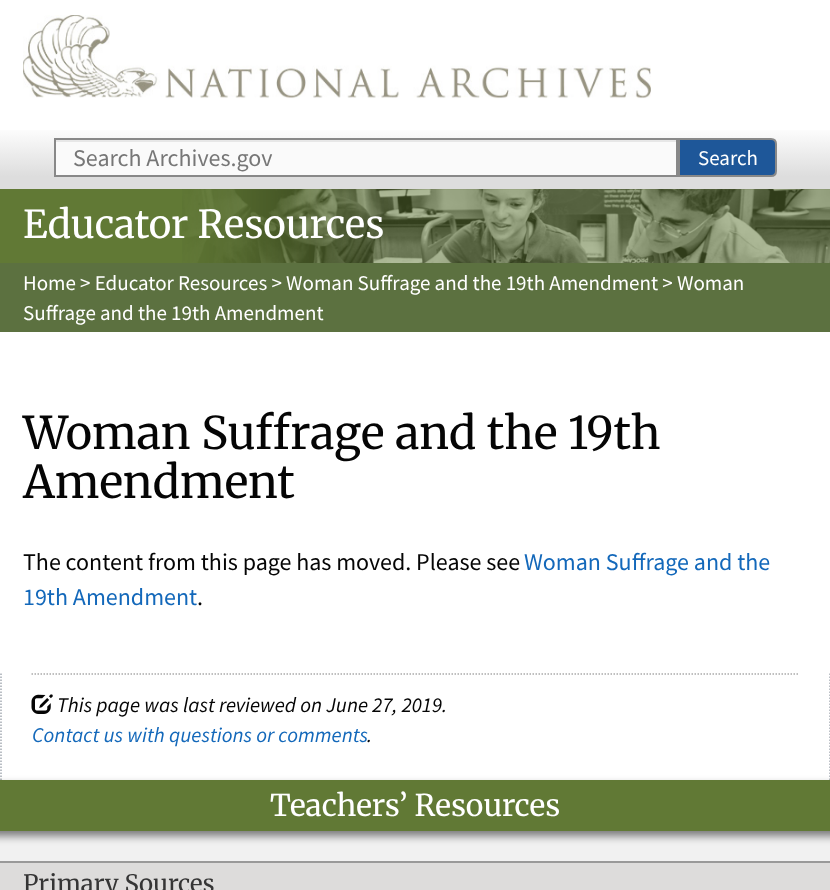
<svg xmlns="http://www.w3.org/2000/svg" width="830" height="890">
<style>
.a{font:24px Source Sans Pro;fill:#777}
.b{font:21px Source Sans Pro;fill:#fff}
.c{font:300 38.5px Merriweather;fill:#fff}
.d{font:300 45px Merriweather;fill:#050505}
.e{font:24px Source Sans Pro;fill:#050505}
.f{font:24px Source Sans Pro;fill:#1368ba}
.g{font:italic 21px Source Sans Pro;fill:#050505}
.h{font:italic 21px Source Sans Pro;fill:#1368ba}
.i{font:300 30px Merriweather;fill:#fff}
.j{font:300 24px Merriweather;fill:#353535}
</style>
<defs>
<linearGradient id="g1" gradientUnits="userSpaceOnUse" x1="416" y1="126" x2="416" y2="189"><stop offset="0" stop-color="#fff"/><stop offset="0.8" stop-color="#ddd"/></linearGradient>
</defs>
<rect width="100%" height="100%" fill="#fff"/>
<image href="1.png" x="23" y="15" width="628" height="84"/>
<path fill="url(#g1)" d="M0 130h830v59H0z"/>
<path fill="#fafafa" d="M56 142h620v33H56z"/>
<path fill="#e7e7e7" d="M56 140h621v2H56z"/>
<path fill="none" stroke="#888" stroke-width="2" d="M55 139h622v37H55z"/>
<path fill="#1e5799" stroke="#888" stroke-width="2" d="M679 139h92c3 0 5 2 5 5v27c0 3-2 5-5 5h-92z"/>
<path fill="#617935" d="M0 189h830v74H0z"/>
<image href="2.png" x="182" y="189" width="648" height="74"/>
<path fill="#5c7140" d="M0 263h830v69H0z"/>
<path fill="none" stroke="#a4abb3" stroke-width="1.5" stroke-dasharray="1.5 1.5" d="M830 673.5v106.5"/>
<path fill="none" stroke="#a4abb3" stroke-width="1.5" stroke-dasharray="1.5 1.5" d="M1 673.5v106.5"/>
<path fill="none" stroke="#aaa" stroke-width="1.5" stroke-dasharray="1.5 1.5" d="M31.5 674h768"/>
<image href="3.png" x="31" y="694" width="22" height="20"/>
<path fill="#f1f1f1" d="M0 831h830v30H0z"/>
<path fill="#00000080" filter="blur(4.5px)" d="M-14 785h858v51H-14z"/>
<path fill="#617935" d="M0 780h830v51H0z"/>
<path fill="#dddcdb" d="M0 863h830v27H0z"/>
<path fill="#999" d="M0 861h830v2H0z"/>
<text class="a" x="73" y="166">Search Archives.gov</text>
<text class="b" x="698" y="165">Search</text>
<text class="c" x="23" y="238">Educator Resources</text>
<text class="b" x="23" y="290">Home &gt; Educator Resources &gt; Woman Suffrage and the 19th Amendment &gt; Woman</text>
<text class="b" x="23" y="320">Suffrage and the 19th Amendment</text>
<text class="d" x="23" y="449">Woman Suffrage and the 19th</text>
<text class="d" x="23" y="498">Amendment</text>
<text class="e" x="23" y="570">The content from this page has moved. Please see</text>
<text class="f" x="524" y="570">Woman Suffrage and the</text>
<text class="f" x="23" y="605">19th Amendment</text>
<text class="e" x="197" y="605">.</text>
<text class="g" x="57" y="712">This page was last reviewed on June 27, 2019.</text>
<text class="h" x="32" y="742">Contact us with questions or comments</text>
<text class="g" x="367" y="742">.</text>
<text class="i" x="270" y="816">Teachers’ Resources</text>
<text class="j" x="23" y="892">Primary Sources</text>
</svg>
